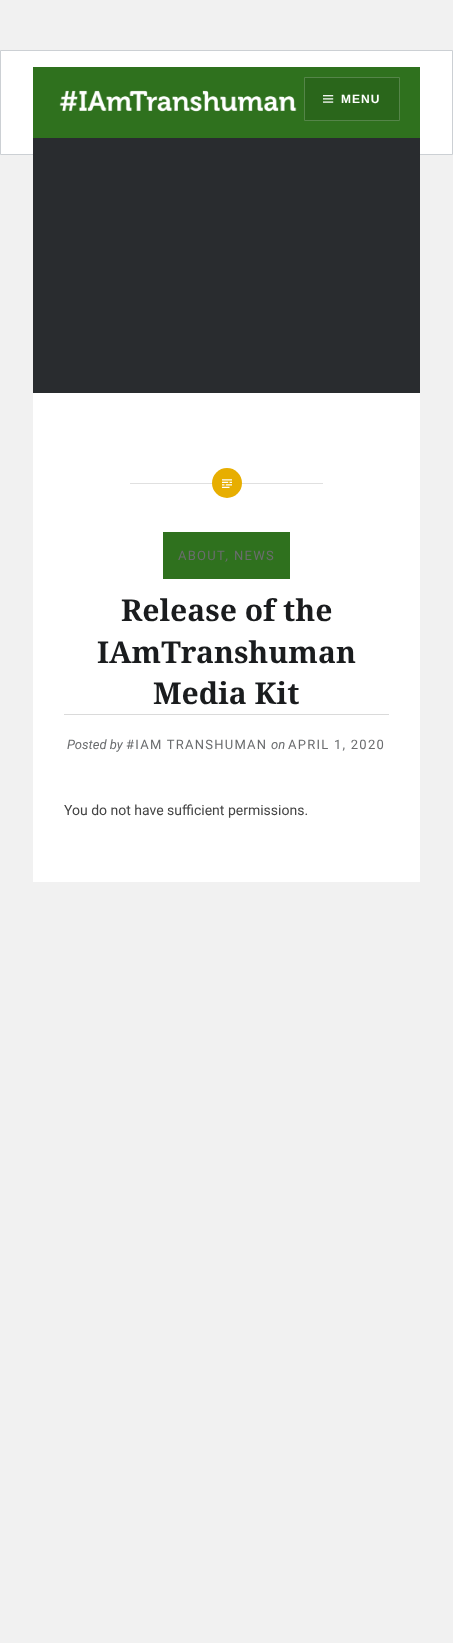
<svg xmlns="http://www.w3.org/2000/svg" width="453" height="1643">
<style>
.a{font:bold 12px Liberation Sans;letter-spacing:1px;fill:#fff}
.b{font:13px Roboto;letter-spacing:1.25px;fill:#6a6c6e}
.c{font:italic 13px Roboto;letter-spacing:1.25px;fill:#6a6c6e}
.d{font:bold 30px Noto Serif;fill:#1a1c1e}
.e{font:italic 13px Roboto;fill:#6a6c6e}
.f{font:14px Roboto;fill:#444}
</style>
<rect width="100%" height="100%" fill="#f1f1f1"/>
<path fill="#fff" stroke="#ccd0d4" d="M0.5 50.5h452v104H0.5z"/>
<path fill="#2f711e" d="M33 67h387v71H33z"/>
<image href="1.png" x="59" y="90" width="238" height="22"/>
<path fill="#2a661b" stroke="#558549" d="M304.5 77.5h95v43H304.5z"/>
<image href="2.png" x="323" y="95" width="11" height="8"/>
<path fill="#fff" d="M33 393h387v489H33z"/>
<path fill="#292c2f" d="M33 138h387v255H33z"/>
<path fill="#e0e0e0" d="M130 483h193v1H130z"/>
<circle fill="#e7ae01" cx="227" cy="483" r="15"/>
<image href="3.png" x="222" y="479" width="10" height="9"/>
<path fill="#2f711e" d="M163 532h127v47H163z"/>
<path fill="#dadada" d="M64 714h325v1H64z"/>
<text class="a" x="341" y="103">MENU</text>
<text class="b" x="178" y="560">ABOUT</text>
<text class="c" x="226" y="560">,</text>
<text class="b" x="234" y="560">NEWS</text>
<text class="d" x="121" y="621">Release of the</text>
<text class="d" x="97" y="663">IAmTranshuman</text>
<text class="d" x="153" y="704">Media Kit</text>
<text class="e" x="67" y="749">Posted by</text>
<text class="b" x="126" y="749">#IAM TRANSHUMAN</text>
<text class="e" x="271" y="749">on</text>
<text class="b" x="288" y="749">APRIL 1, 2020</text>
<text class="f" x="64" y="815">You do not have sufficient permissions.</text>
</svg>
